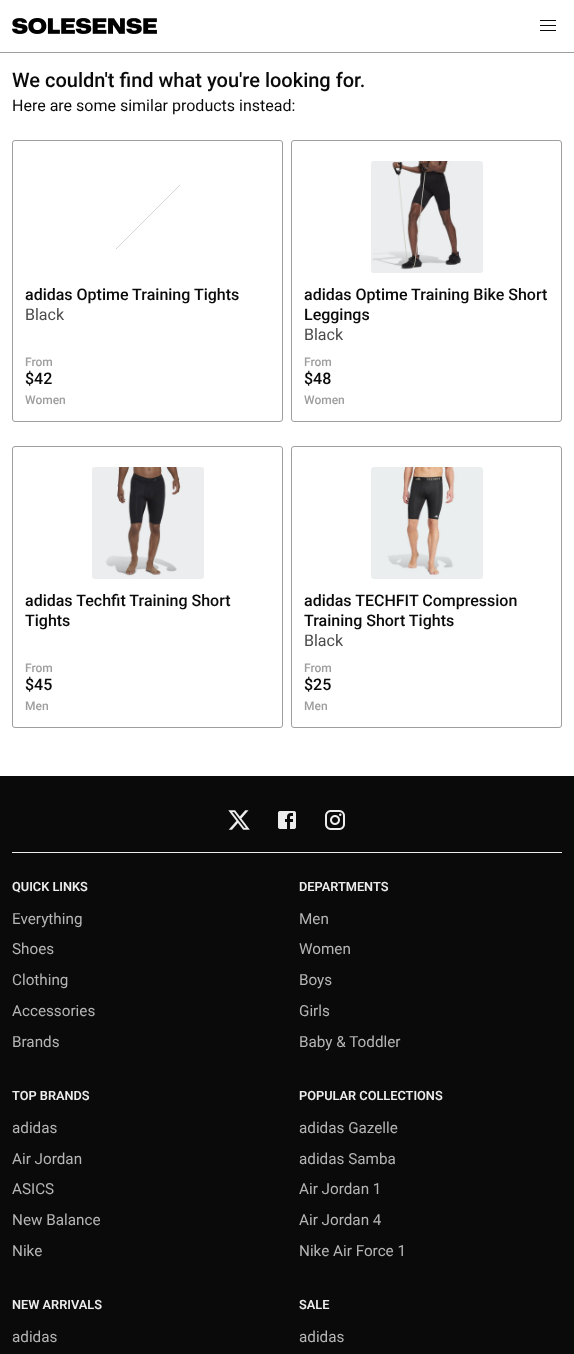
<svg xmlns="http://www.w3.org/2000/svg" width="574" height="1354">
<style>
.a{font:500 20px Roboto;fill:#0a0a0a}
.b{font:16px Roboto;fill:#0a0a0a}
.c{font:500 16px Roboto;fill:#0a0a0a}
.d{font:16px Roboto;fill:#4a4a4a}
.e{font:500 12px Roboto;fill:#9e9e9e}
.f{font:600 12.75px Roboto;fill:#ededed}
.g{font:15.25px Roboto;fill:#b5b5b5}
</style>
<rect width="100%" height="100%" fill="#fff"/>
<path fill="#9e9e9e" d="M0 52h574v1H0z"/>
<image href="1.png" x="12" y="18" width="145" height="16"/>
<path fill="#0a0a0a" d="M540 20h16v1H540z"/>
<path fill="#0a0a0a" d="M540 25h16v1H540z"/>
<path fill="#0a0a0a" d="M540 30h16v1H540z"/>
<rect fill="none" stroke="#9e9e9e" x="12.5" y="140.5" width="270" height="281" rx="2.5"/>
<path fill="none" stroke="#b5b5b5" stroke-width="0.6" d="M180 185l-64 64"/>
<rect fill="none" stroke="#9e9e9e" x="291.5" y="140.5" width="270" height="281" rx="2.5"/>
<image href="2.png" x="371" y="161" width="112" height="112"/>
<rect fill="none" stroke="#9e9e9e" x="12.5" y="446.5" width="270" height="281" rx="2.5"/>
<image href="3.png" x="92" y="467" width="112" height="112"/>
<rect fill="none" stroke="#9e9e9e" x="291.5" y="446.5" width="270" height="281" rx="2.5"/>
<image href="4.png" x="371" y="467" width="112" height="112"/>
<path fill="#0a0a0a" d="M0 776h574v578H0z"/>
<path fill="#ededed" d="M12 852h550v1H12z"/>
<image href="5.png" x="228" y="810" width="22" height="20"/>
<image href="6.png" x="278" y="811" width="18" height="18"/>
<image href="7.png" x="325" y="810" width="20" height="20"/>
<text class="a" x="12" y="87">We couldn't find what you're looking for.</text>
<text class="b" x="12" y="111">Here are some similar products instead:</text>
<text class="c" x="25" y="300">adidas Optime Training Tights</text>
<text class="d" x="25" y="320">Black</text>
<text class="e" x="25" y="366">From</text>
<text class="c" x="25" y="384">$42</text>
<text class="e" x="25" y="404">Women</text>
<text class="c" x="304" y="300">adidas Optime Training Bike Short</text>
<text class="c" x="304" y="320">Leggings</text>
<text class="d" x="304" y="340">Black</text>
<text class="e" x="304" y="366">From</text>
<text class="c" x="304" y="384">$48</text>
<text class="e" x="304" y="404">Women</text>
<text class="c" x="25" y="606">adidas Techfit Training Short</text>
<text class="c" x="25" y="626">Tights</text>
<text class="e" x="25" y="672">From</text>
<text class="c" x="25" y="690">$45</text>
<text class="e" x="25" y="710">Men</text>
<text class="c" x="304" y="606">adidas TECHFIT Compression</text>
<text class="c" x="304" y="626">Training Short Tights</text>
<text class="d" x="304" y="646">Black</text>
<text class="e" x="304" y="672">From</text>
<text class="c" x="304" y="690">$25</text>
<text class="e" x="304" y="710">Men</text>
<text class="f" x="12" y="891">QUICK LINKS</text>
<text class="g" x="12" y="924">Everything</text>
<text class="g" x="12" y="954">Shoes</text>
<text class="g" x="12" y="985">Clothing</text>
<text class="g" x="12" y="1016">Accessories</text>
<text class="g" x="12" y="1047">Brands</text>
<text class="f" x="299" y="891">DEPARTMENTS</text>
<text class="g" x="299" y="924">Men</text>
<text class="g" x="299" y="954">Women</text>
<text class="g" x="299" y="985">Boys</text>
<text class="g" x="299" y="1016">Girls</text>
<text class="g" x="299" y="1047">Baby &amp; Toddler</text>
<text class="f" x="12" y="1100">TOP BRANDS</text>
<text class="g" x="12" y="1133">adidas</text>
<text class="g" x="12" y="1164">Air Jordan</text>
<text class="g" x="12" y="1194">ASICS</text>
<text class="g" x="12" y="1225">New Balance</text>
<text class="g" x="12" y="1256">Nike</text>
<text class="f" x="299" y="1100">POPULAR COLLECTIONS</text>
<text class="g" x="299" y="1133">adidas Gazelle</text>
<text class="g" x="299" y="1164">adidas Samba</text>
<text class="g" x="299" y="1194">Air Jordan 1</text>
<text class="g" x="299" y="1225">Air Jordan 4</text>
<text class="g" x="299" y="1256">Nike Air Force 1</text>
<text class="f" x="12" y="1309">NEW ARRIVALS</text>
<text class="g" x="12" y="1342">adidas</text>
<text class="f" x="299" y="1309">SALE</text>
<text class="g" x="299" y="1342">adidas</text>
</svg>
